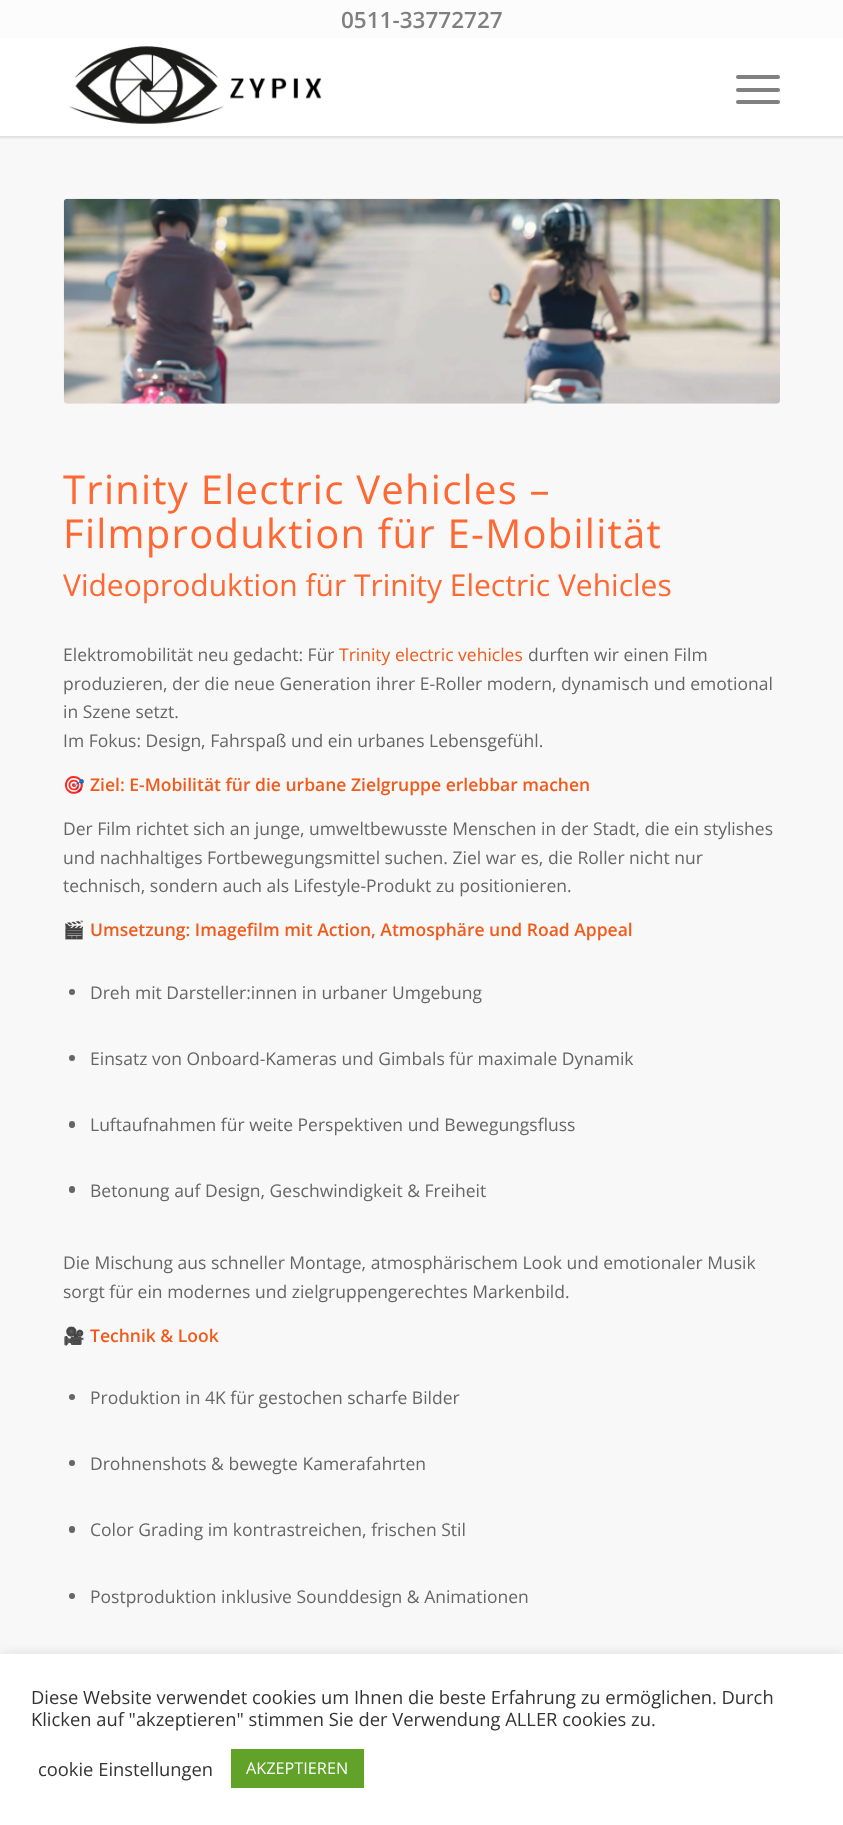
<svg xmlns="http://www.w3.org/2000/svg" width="843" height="1825">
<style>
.a{font:600 22.5px Open Sans;fill:#808080}
.b{font:40px Open Sans;letter-spacing:1.25px;fill:#fe6933}
.c{font:30px Open Sans;fill:#fe6933}
.d{font:17.5px Open Sans;fill:#666}
.e{font:17.5px Open Sans;fill:#f05a1a}
.f{font:17.5px Noto Color Emoji;fill:#666}
.g{font:600 17.5px Open Sans;fill:#f05a1a}
.h{font:18.35px Open Sans;fill:#333}
.i{font:16.25px Open Sans;fill:#fff}
</style>
<rect width="100%" height="100%" fill="#f8f8f8"/>
<path fill="#0000001a" filter="blur(1px)" d="M-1 -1h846v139H-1z"/>
<path fill="#fcfcfc" d="M0 0h843v38H0z"/>
<path fill="#fff" d="M0 38h843v98H0z"/>
<image href="1.png" x="69" y="46" width="253" height="78"/>
<rect fill="#808080" x="736" y="88" width="44" height="4" rx="2"/>
<rect fill="#808080" x="736" y="75" width="44" height="4" rx="2"/>
<rect fill="#808080" x="736" y="100" width="44" height="4" rx="2"/>
<image href="2.png" x="63" y="198" width="717" height="206"/>
<circle fill="#666" cx="72" cy="992" r="3"/>
<circle fill="#666" cx="72" cy="1058" r="3"/>
<rect fill="#666" x="69" y="1121" width="6" height="7" rx="3"/>
<rect fill="#666" x="69" y="1186" width="6" height="7" rx="3"/>
<circle fill="#666" cx="72" cy="1397" r="3"/>
<circle fill="#666" cx="72" cy="1463" r="3"/>
<rect fill="#666" x="69" y="1526" width="6" height="7" rx="3"/>
<circle fill="#666" cx="72" cy="1596" r="3"/>
<path fill="#acabab4d" filter="blur(6px)" d="M0 1653h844v171H0z"/>
<path fill="#fff" d="M0 1654h843v171H0z"/>
<path fill="#61a229" d="M231 1749h133v39H231z"/>
<text class="a" x="341" y="28">0511-33772727</text>
<text class="b" x="63" y="504">Trinity Electric Vehicles –</text>
<text class="b" x="63" y="548">Filmproduktion für E-Mobilität</text>
<text class="c" x="63" y="596">Videoproduktion für Trinity Electric Vehicles</text>
<text class="d" x="63" y="661">Elektromobilität neu gedacht: Für</text>
<text class="e" x="339" y="661">Trinity electric vehicles</text>
<text class="d" x="528" y="661">durften wir einen Film</text>
<text class="d" x="63" y="690">produzieren, der die neue Generation ihrer E-Roller modern, dynamisch und emotional</text>
<text class="d" x="63" y="718">in Szene setzt.</text>
<text class="d" x="63" y="747">Im Fokus: Design, Fahrspaß und ein urbanes Lebensgefühl.</text>
<text class="f" x="63" y="791">🎯</text>
<text class="g" x="90" y="791">Ziel: E-Mobilität für die urbane Zielgruppe erlebbar machen</text>
<text class="d" x="63" y="835">Der Film richtet sich an junge, umweltbewusste Menschen in der Stadt, die ein stylishes</text>
<text class="d" x="63" y="864">und nachhaltiges Fortbewegungsmittel suchen. Ziel war es, die Roller nicht nur</text>
<text class="d" x="63" y="892">technisch, sondern auch als Lifestyle-Produkt zu positionieren.</text>
<text class="f" x="63" y="936">🎬</text>
<text class="g" x="90" y="936">Umsetzung: Imagefilm mit Action, Atmosphäre und Road Appeal</text>
<text class="d" x="90" y="999">Dreh mit Darsteller:innen in urbaner Umgebung</text>
<text class="d" x="90" y="1065">Einsatz von Onboard-Kameras und Gimbals für maximale Dynamik</text>
<text class="d" x="90" y="1131">Luftaufnahmen für weite Perspektiven und Bewegungsfluss</text>
<text class="d" x="90" y="1197">Betonung auf Design, Geschwindigkeit &amp; Freiheit</text>
<text class="d" x="63" y="1269">Die Mischung aus schneller Montage, atmosphärischem Look und emotionaler Musik</text>
<text class="d" x="63" y="1298">sorgt für ein modernes und zielgruppengerechtes Markenbild.</text>
<text class="f" x="63" y="1342">🎥</text>
<text class="g" x="90" y="1342">Technik &amp; Look</text>
<text class="d" x="90" y="1404">Produktion in 4K für gestochen scharfe Bilder</text>
<text class="d" x="90" y="1470">Drohnenshots &amp; bewegte Kamerafahrten</text>
<text class="d" x="90" y="1536">Color Grading im kontrastreichen, frischen Stil</text>
<text class="d" x="90" y="1603">Postproduktion inklusive Sounddesign &amp; Animationen</text>
<text class="h" x="31" y="1704">Diese Website verwendet cookies um Ihnen die beste Erfahrung zu ermöglichen. Durch</text>
<text class="h" x="31" y="1726">Klicken auf "akzeptieren" stimmen Sie der Verwendung ALLER cookies zu.</text>
<text class="h" x="38" y="1776">cookie Einstellungen</text>
<text class="i" x="246" y="1774">AKZEPTIEREN</text>
</svg>
